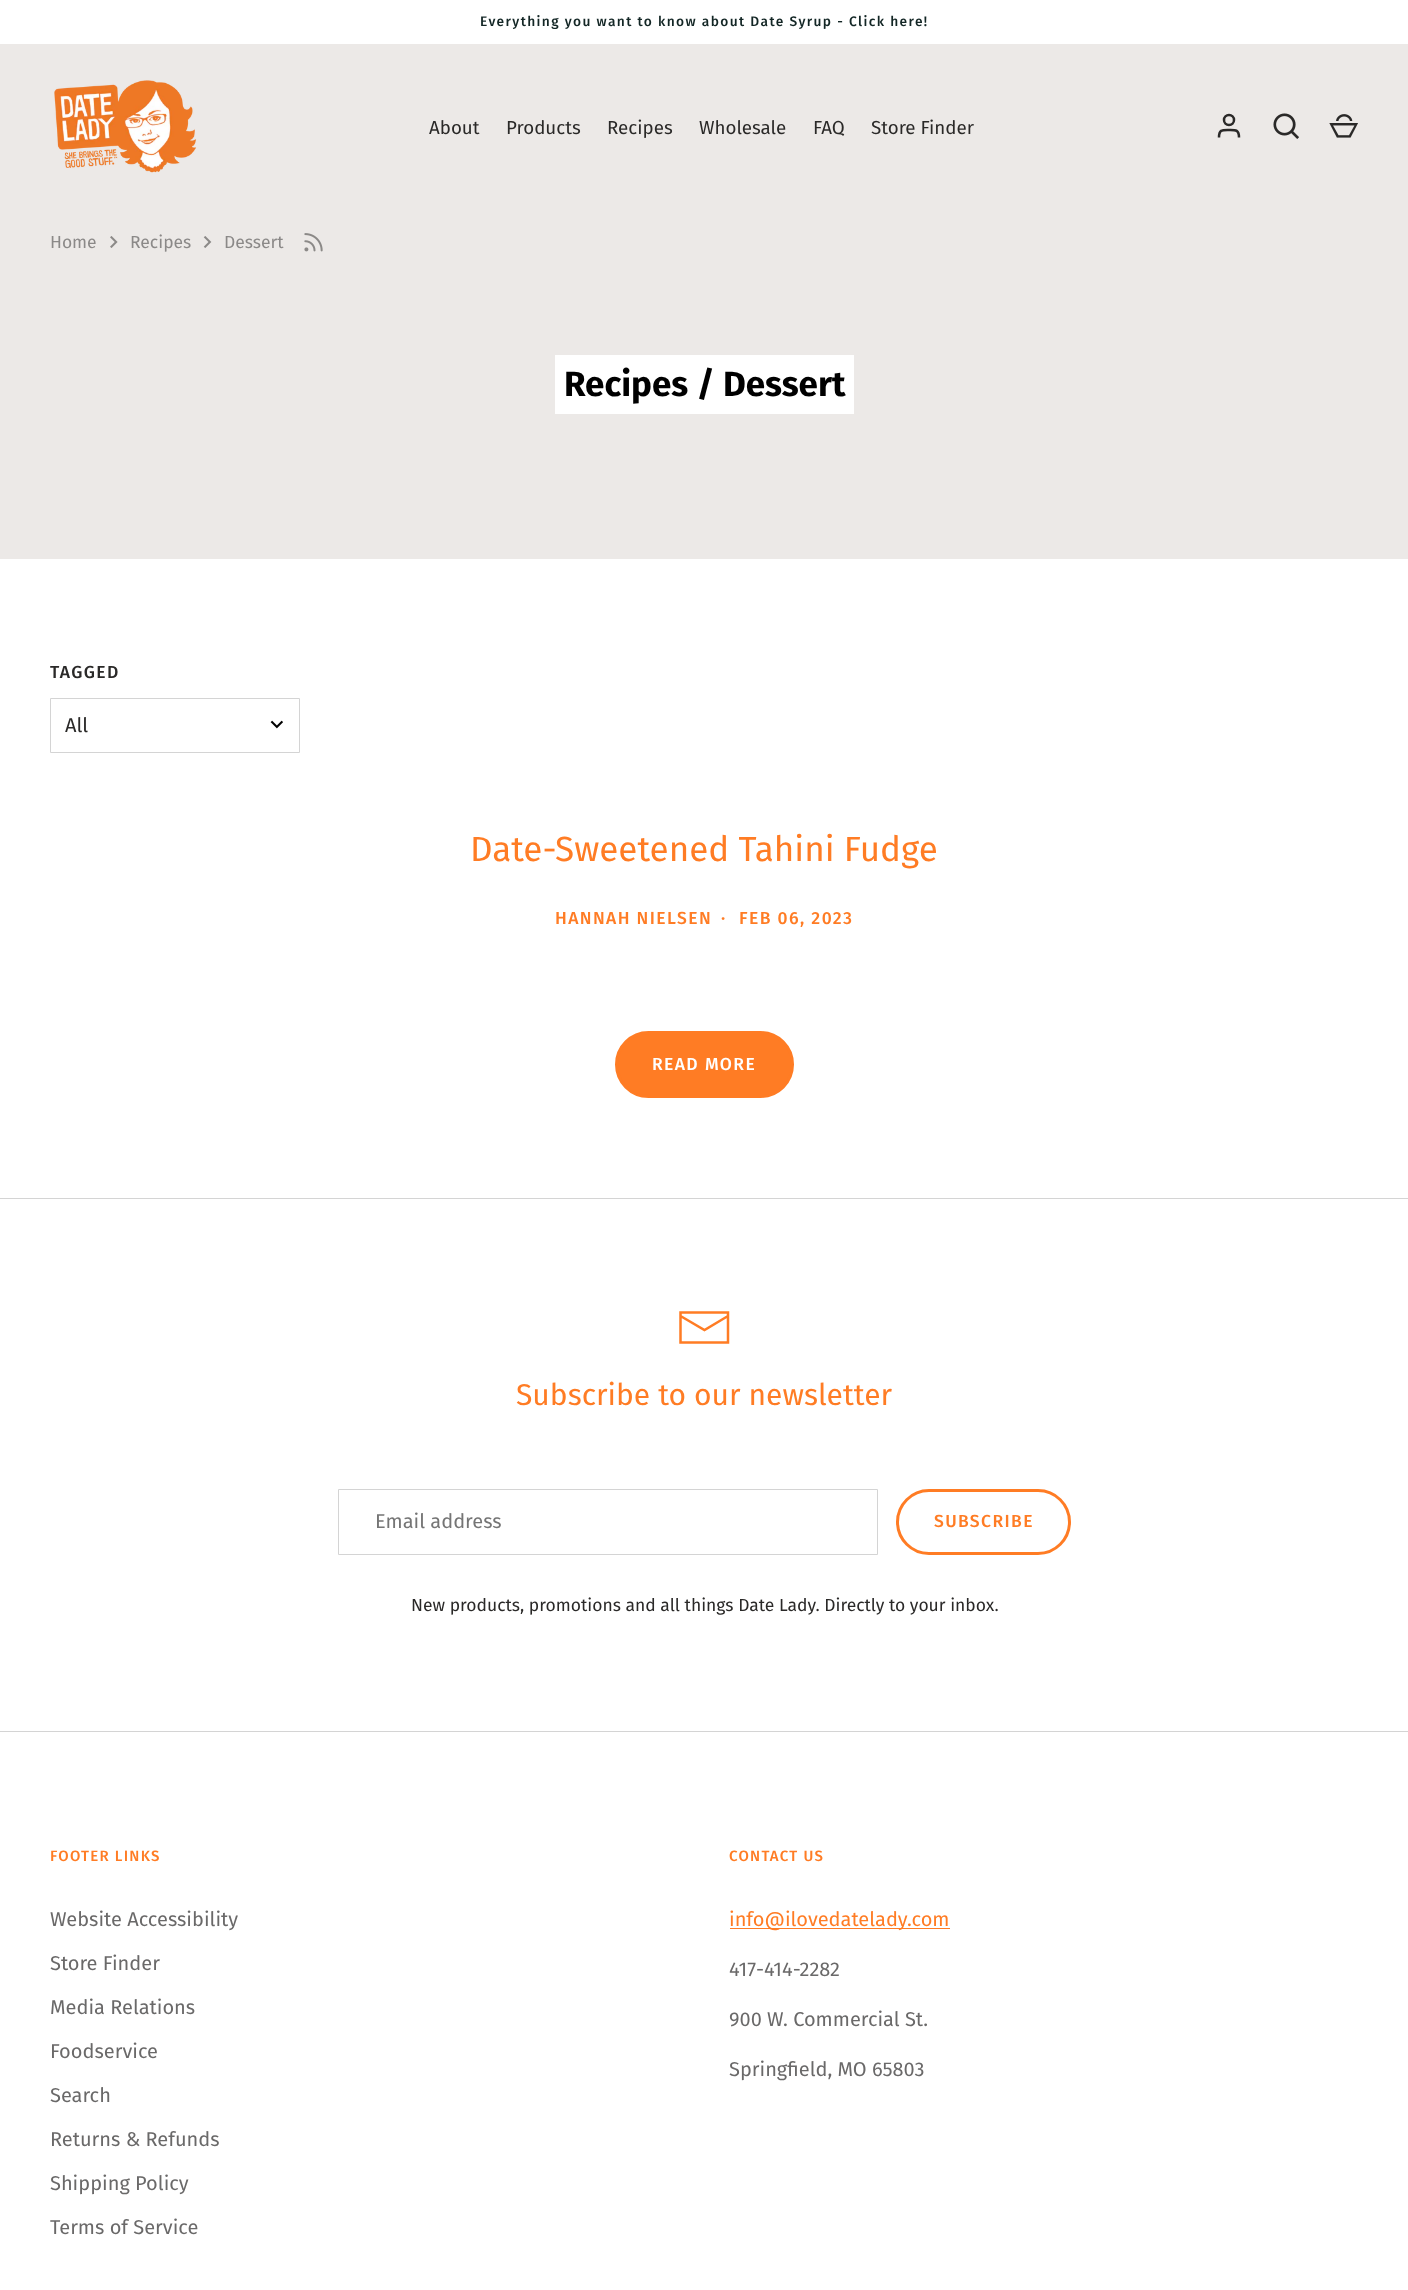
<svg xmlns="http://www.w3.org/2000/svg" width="1408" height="2290">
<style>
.a{font:500 13.75px Fira Sans;letter-spacing:1.38px;fill:#132625}
.b{font:18.75px Fira Sans;fill:#2a2928}
.c{font:17.5px Fira Sans;fill:#8b8988}
.d{font:bold 35px Fira Sans;fill:#000}
.e{font:500 17.5px Fira Sans;letter-spacing:1.4px;fill:#2a2928}
.f{font:20px Fira Sans;fill:#2a2928}
.g{font:35px Fira Sans;fill:#ff7c24}
.h{font:500 17.5px Fira Sans;letter-spacing:1.4px;fill:#ff7c24}
.i{font:500 17.5px Fira Sans;letter-spacing:1.4px;fill:#fff}
.j{font:30px Fira Sans;fill:#ff7c24}
.k{font:20px Fira Sans;fill:#757575}
.l{font:17.5px Fira Sans;fill:#2a2928}
.m{font:500 15px Fira Sans;letter-spacing:1.25px;fill:#ff7c24}
.n{font:20px Fira Sans;fill:#6a6969}
.o{font:20px Fira Sans;fill:#ff7c24}
</style>
<rect width="100%" height="100%" fill="#fff"/>
<path fill="#ece9e7" d="M0 44h1408v515H0z"/>
<image href="1.png" x="54" y="80" width="143" height="93"/>
<circle fill="none" stroke="#2a2928" stroke-width="2.5" cx="1229" cy="120" r="5"/>
<path fill="none" stroke="#2a2928" stroke-width="2.5" d="M1239 137.5c0-8-3.5-7.5-10-7.5c-7 0-10-.5-10 7.5"/>
<image href="2.png" x="1273" y="113" width="26" height="26"/>
<image href="3.png" x="1329" y="114" width="29" height="24"/>
<image href="4.png" x="110" y="236" width="8" height="12"/>
<image href="5.png" x="203" y="236" width="9" height="12"/>
<image href="6.png" x="304" y="233" width="19" height="19"/>
<path fill="#fff" d="M555 355h299v59H555z"/>
<image href="7.png" x="270" y="720" width="13" height="9"/>
<path fill="none" stroke="#d4d4d4" d="M50.5 698.5h249v54H50.5z"/>
<rect fill="#ff7c24" stroke="#ff7c24" stroke-width="3" x="616.5" y="1032.5" width="176" height="64" rx="32"/>
<path fill="#d4d4d4" d="M0 1198h1408v1H0z"/>
<path fill="#d4d4d4" d="M0 1731h1408v1H0z"/>
<path fill="none" stroke="#ff7c24" stroke-width="2.5" d="M680.5 1312.5v30h47.5v-30zm0 3.5l24 14l23.5-14"/>
<path fill="none" stroke="#d4d4d4" d="M338.5 1489.5h539v65H338.5z"/>
<rect fill="none" stroke="#ff7c24" stroke-width="3" x="897.5" y="1490.5" width="172" height="63" rx="31.5"/>
<path fill="#ff7c24" d="M730 1928h220v1H730z"/>
<text class="a" x="480" y="26">Everything you want to know about Date Syrup - Click here!</text>
<text class="b" x="429" y="134">About</text>
<text class="b" x="506" y="134">Products</text>
<text class="b" x="607" y="134">Recipes</text>
<text class="b" x="699" y="134">Wholesale</text>
<text class="b" x="813" y="134">FAQ</text>
<text class="b" x="871" y="134">Store Finder</text>
<text class="c" x="50" y="248">Home</text>
<text class="c" x="130" y="248">Recipes</text>
<text class="c" x="224" y="248">Dessert</text>
<text class="d" x="564" y="396">Recipes / Dessert</text>
<text class="e" x="50" y="678">TAGGED</text>
<text class="f" x="65" y="732">All</text>
<text class="g" x="470" y="861">Date-Sweetened Tahini Fudge</text>
<text class="h" x="555" y="924">HANNAH NIELSEN</text>
<text class="h" x="721" y="924">·</text>
<text class="h" x="739" y="924">FEB 06, 2023</text>
<text class="i" x="652" y="1070">READ MORE</text>
<text class="j" x="516" y="1405">Subscribe to our newsletter</text>
<text class="k" x="375" y="1528">Email address</text>
<text class="h" x="934" y="1527">SUBSCRIBE</text>
<text class="l" x="411" y="1611">New products, promotions and all things Date Lady. Directly to your inbox.</text>
<text class="m" x="50" y="1861">FOOTER LINKS</text>
<text class="n" x="50" y="1926">Website Accessibility</text>
<text class="n" x="50" y="1970">Store Finder</text>
<text class="n" x="50" y="2014">Media Relations</text>
<text class="n" x="50" y="2058">Foodservice</text>
<text class="n" x="50" y="2102">Search</text>
<text class="n" x="50" y="2146">Returns &amp; Refunds</text>
<text class="n" x="50" y="2190">Shipping Policy</text>
<text class="n" x="50" y="2234">Terms of Service</text>
<text class="m" x="729" y="1861">CONTACT US</text>
<text class="o" x="729" y="1926">info@ilovedatelady.com</text>
<text class="n" x="729" y="1976">417-414-2282</text>
<text class="n" x="729" y="2026">900 W. Commercial St.</text>
<text class="n" x="729" y="2076">Springfield, MO 65803</text>
</svg>
